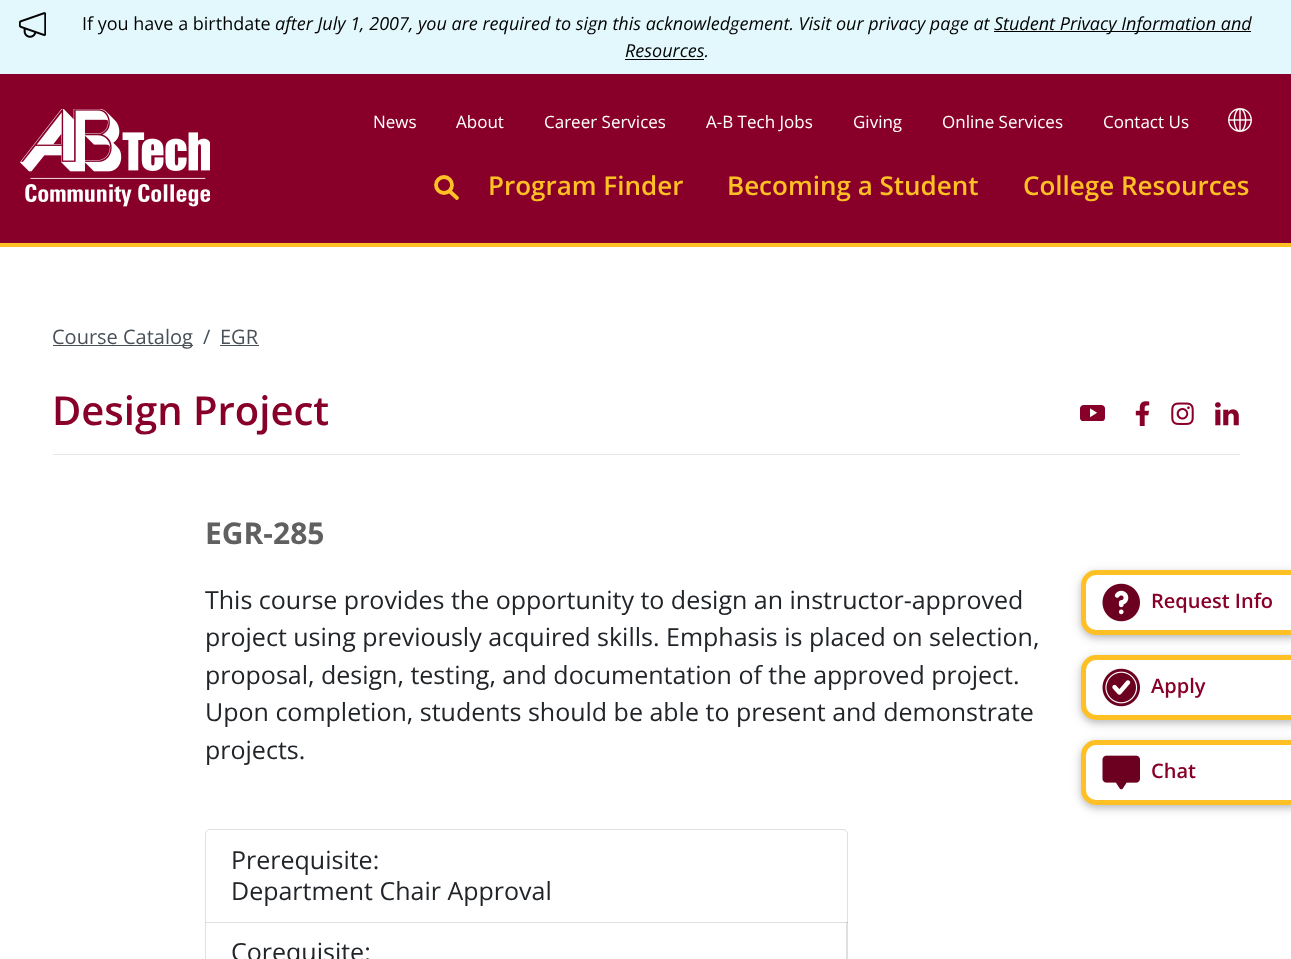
<svg xmlns="http://www.w3.org/2000/svg" width="1291" height="959">
<style>
.a{font:18px Open Sans;fill:#000}
.b{font:italic 18px Open Sans;fill:#000}
.c{font:17px Open Sans;fill:#fff}
.d{font:600 26px Open Sans;fill:#ffc025}
.e{font:20px Open Sans;fill:#495057}
.f{font:600 40px Open Sans;fill:#880029}
.g{font:bold 30px Open Sans;fill:#616060}
.h{font:25px Open Sans;fill:#212529}
.i{font:600 20px Open Sans;fill:#880029}
</style>
<rect width="100%" height="100%" fill="#fff"/>
<path fill="#e2f8fd" d="M0 0h1291v74H0z"/>
<image href="1.png" x="19" y="12" width="27" height="26"/>
<path fill="#000" d="M994 31h257v1H994z"/>
<path fill="#000" d="M625 59h79v1H625z"/>
<path fill="#880029" d="M0 74h1291v169H0z"/>
<path fill="#ffc025" d="M0 243h1291v4H0z"/>
<image href="2.png" x="20" y="109" width="190" height="98"/>
<image href="3.png" x="1228" y="108" width="24" height="24"/>
<circle fill="none" stroke="#ffc025" stroke-width="3.8" cx="444" cy="185" r="8"/>
<path fill="none" stroke="#ffc025" stroke-width="3.8" stroke-linecap="round" stroke-linejoin="round" d="M450.5 192l6.5 6"/>
<path fill="#495057" d="M53 345h140v1H53z"/>
<path fill="#495057" d="M220 345h39v1H220z"/>
<image href="4.png" x="1080" y="405" width="25" height="16"/>
<image href="5.png" x="1135" y="401" width="15" height="25"/>
<image href="6.png" x="1171" y="402" width="23" height="23"/>
<image href="7.png" x="1215" y="402" width="24" height="24"/>
<path fill="#e6e6e6" d="M53 454h1187v1H53z"/>
<path fill="none" stroke="#dfdfdf" d="M210 829.5h633c2.5 0 4.5 2 4.5 4.5v88.5h-642v-88.5c0-2.5 2-4.5 4.5-4.5z"/>
<path fill="#0000001f" fill-rule="evenodd" d="M205 922h643v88c0 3-3 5-6 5h-632c-3 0-5-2-5-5zm1 0h640v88c0 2-1 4-4 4h-632c-2 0-4-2-4-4z"/>
<rect fill="#0000001f" filter="blur(6px)" x="1081" y="743" width="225" height="65" rx="15"/>
<rect fill="#00000029" filter="blur(3px)" x="1081" y="743" width="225" height="65" rx="15"/>
<rect fill="#fff" stroke="#ffc025" stroke-width="5" x="1083.5" y="742.5" width="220" height="60" rx="12.5"/>
<rect fill="#0000001f" filter="blur(6px)" x="1081" y="658" width="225" height="65" rx="15"/>
<rect fill="#00000029" filter="blur(3px)" x="1081" y="658" width="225" height="65" rx="15"/>
<rect fill="#fff" stroke="#ffc025" stroke-width="5" x="1083.5" y="657.5" width="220" height="60" rx="12.5"/>
<rect fill="#0000001f" filter="blur(6px)" x="1081" y="573" width="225" height="65" rx="15"/>
<rect fill="#00000029" filter="blur(3px)" x="1081" y="573" width="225" height="65" rx="15"/>
<rect fill="#fff" stroke="#ffc025" stroke-width="5" x="1083.5" y="572.5" width="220" height="60" rx="12.5"/>
<image href="8.png" x="1102" y="583" width="38" height="39"/>
<image href="9.png" x="1102" y="668" width="38" height="39"/>
<image href="10.png" x="1102" y="755" width="38" height="35"/>
<text class="a" x="82" y="30">If you have a birthdate</text>
<text class="b" x="275" y="30">after July 1, 2007, you are required to sign this acknowledgement. Visit our privacy page at</text>
<text class="b" x="994" y="30">Student Privacy Information and</text>
<text class="b" x="625" y="57">Resources.</text>
<text class="c" x="373" y="128">News</text>
<text class="c" x="456" y="128">About</text>
<text class="c" x="544" y="128">Career Services</text>
<text class="c" x="706" y="128">A-B Tech Jobs</text>
<text class="c" x="853" y="128">Giving</text>
<text class="c" x="942" y="128">Online Services</text>
<text class="c" x="1103" y="128">Contact Us</text>
<text class="d" x="488" y="195">Program Finder</text>
<text class="d" x="727" y="195">Becoming a Student</text>
<text class="d" x="1023" y="195">College Resources</text>
<text class="e" x="52" y="344">Course Catalog</text>
<text class="e" x="203" y="344">/</text>
<text class="e" x="220" y="344">EGR</text>
<text class="f" x="52" y="425">Design Project</text>
<text class="g" x="205" y="544">EGR-285</text>
<text class="h" x="205" y="609">This course provides the opportunity to design an instructor-approved</text>
<text class="h" x="205" y="646">project using previously acquired skills. Emphasis is placed on selection,</text>
<text class="h" x="205" y="684">proposal, design, testing, and documentation of the approved project.</text>
<text class="h" x="205" y="721">Upon completion, students should be able to present and demonstrate</text>
<text class="h" x="205" y="759">projects.</text>
<text class="h" x="231" y="869">Prerequisite:</text>
<text class="h" x="231" y="900">Department Chair Approval</text>
<text class="h" x="231" y="961">Corequisite:</text>
<text class="i" x="1151" y="608">Request Info</text>
<text class="i" x="1151" y="693">Apply</text>
<text class="i" x="1151" y="778">Chat</text>
</svg>
